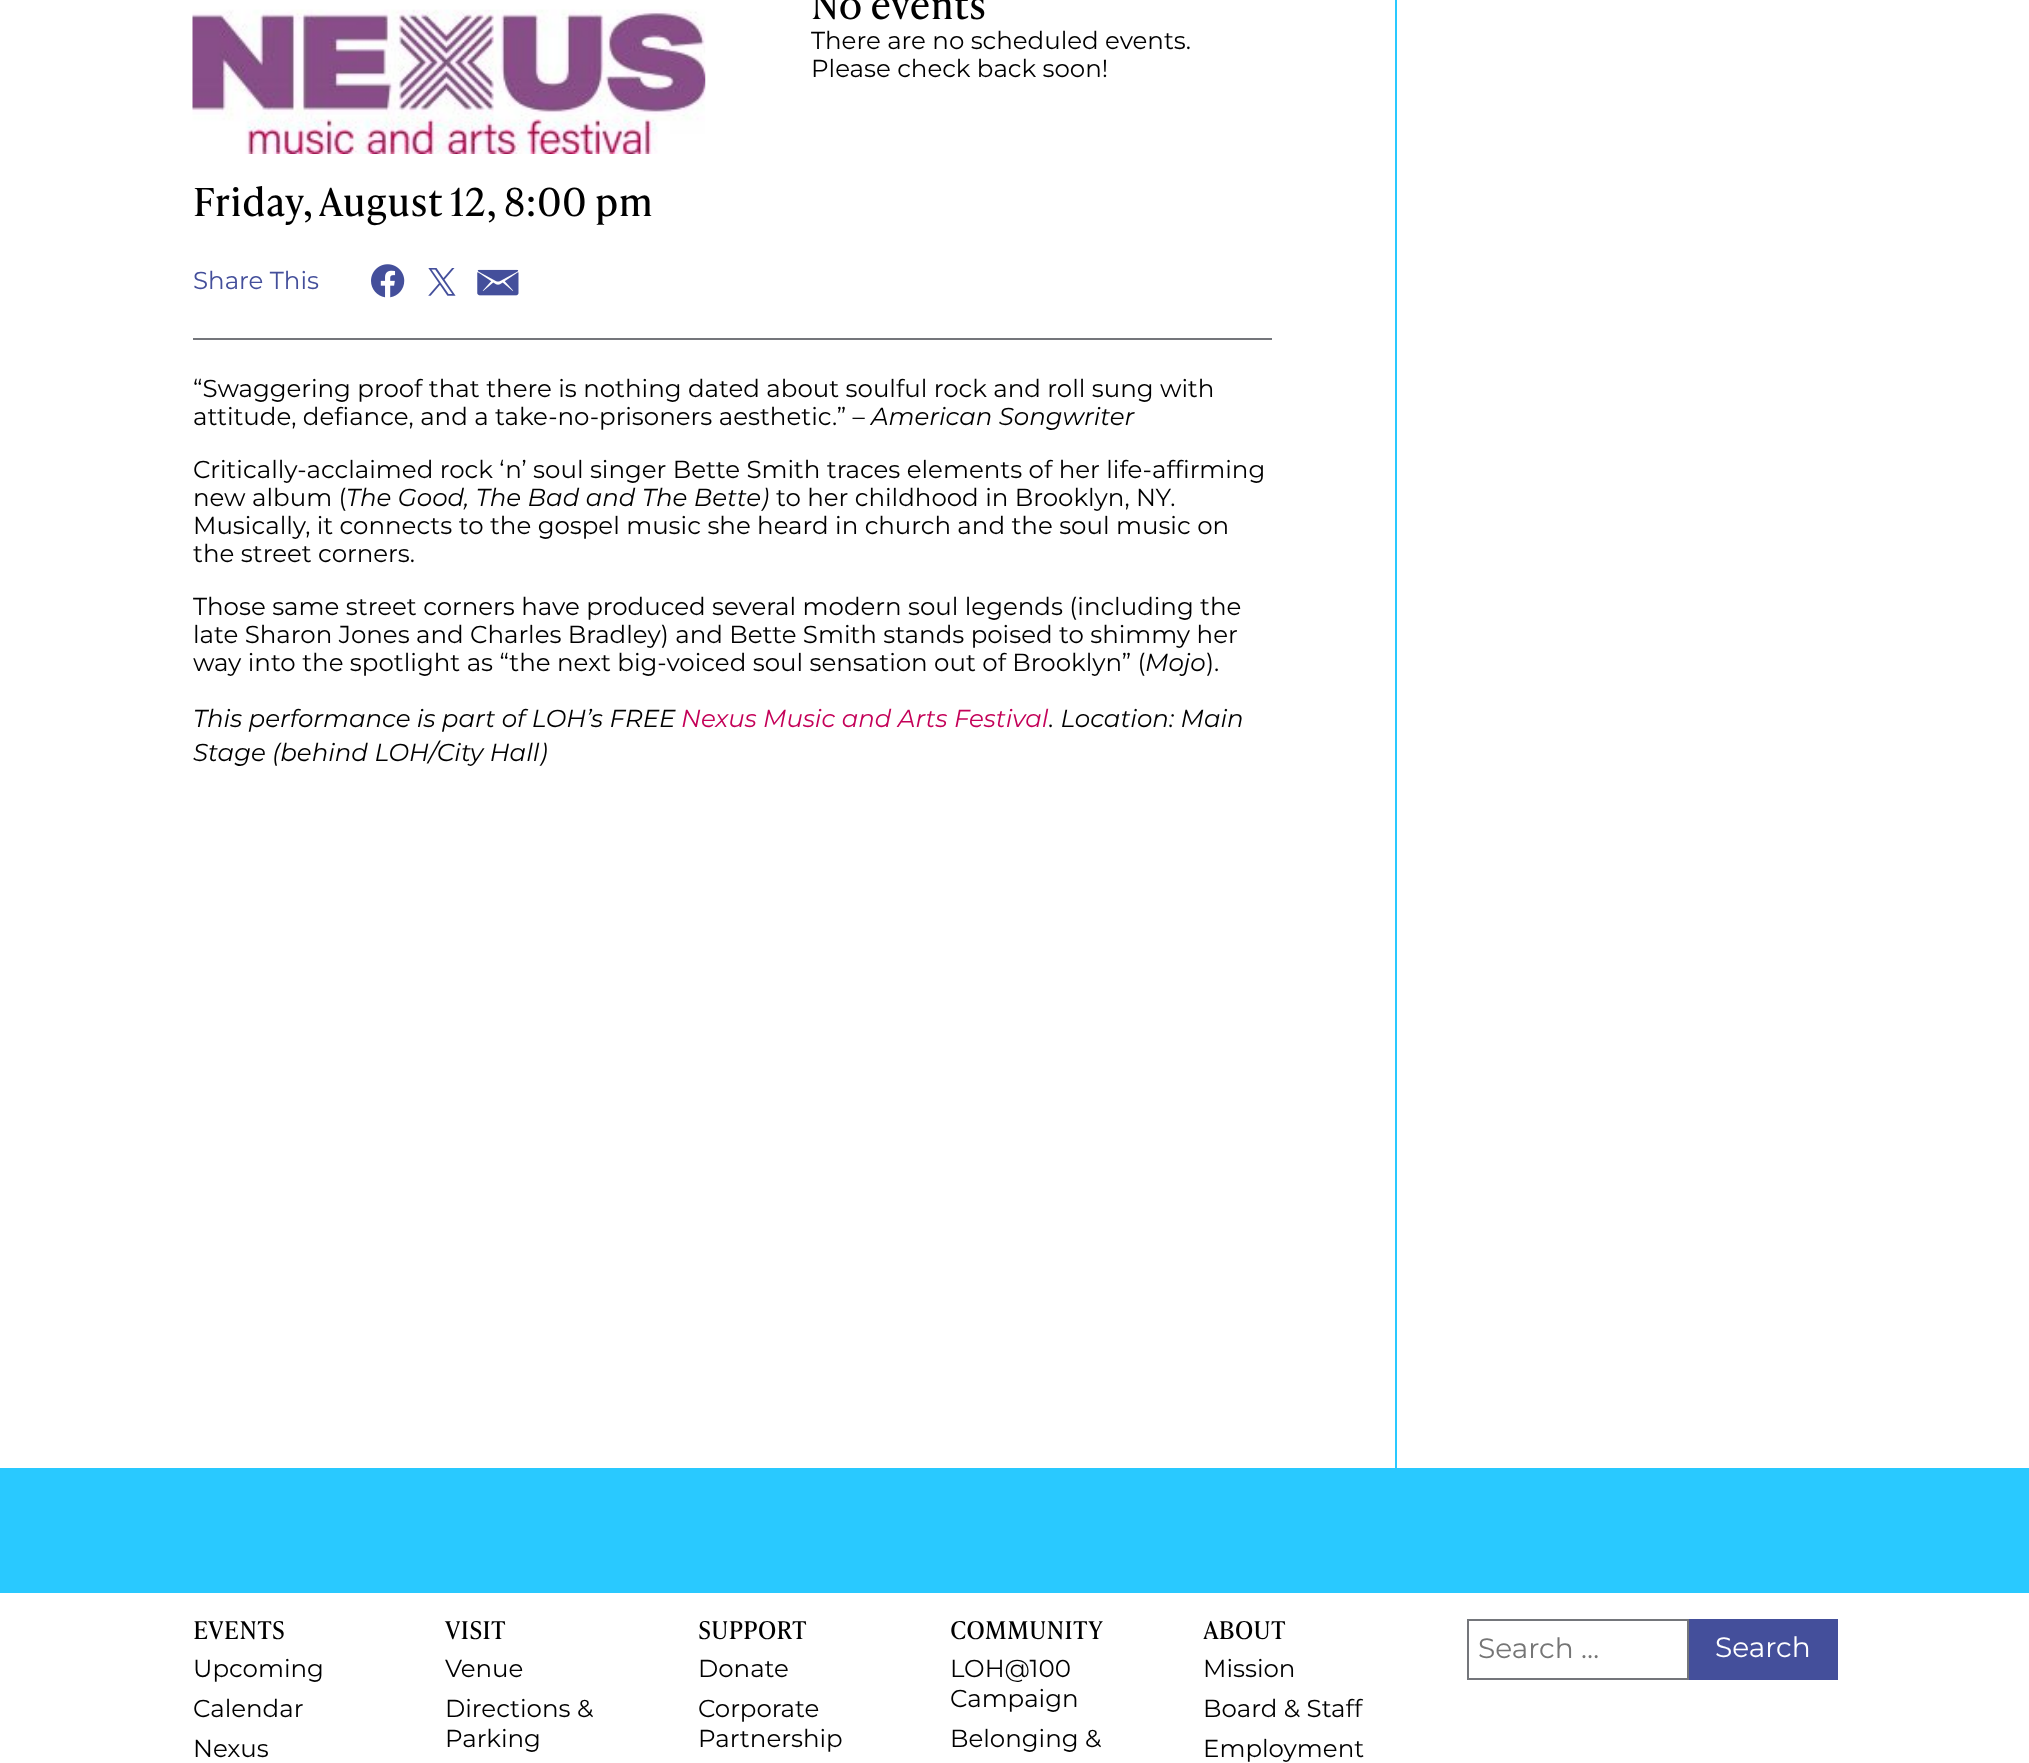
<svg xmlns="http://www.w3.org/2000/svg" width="2029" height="1763">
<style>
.a{font:38.5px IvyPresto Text;fill:#000}
.b{font:24.5px Montserrat;fill:#000}
.c{font:24.5px Montserrat;fill:#444f9b}
.d{font:italic 100 24.5px Montserrat;fill:#000}
.e{font:italic 100 24.5px Montserrat;fill:#c40158}
.f{font:24.5px IvyPresto Text;fill:#000}
.g{font:28px Montserrat;fill:#757575}
.h{font:28px Montserrat;fill:#fff}
</style>
<rect width="100%" height="100%" fill="#29c9ff"/>
<path fill="#fff" d="M0 0h2029v1468H0z"/>
<path fill="#74767b" d="M193 338h1079v2H193z"/>
<image href="1.png" x="192" y="9" width="514" height="145"/>
<image href="2.png" x="371" y="264" width="34" height="34"/>
<image href="3.png" x="428" y="268" width="28" height="28"/>
<image href="4.png" x="477" y="269" width="42" height="27"/>
<path fill="#29c9ff" d="M1395 0h2v1468H1395z"/>
<path fill="#fff" d="M0 1593h2029v170H0z"/>
<path fill="none" stroke="#74767b" stroke-width="2" d="M1468 1620h220v59H1468z"/>
<path fill="#444f9b" d="M1689 1619h149v61H1689z"/>
<text class="a" x="811" y="19">No events</text>
<text class="b" x="811" y="49">There are no scheduled events.</text>
<text class="b" x="811" y="77">Please check back soon!</text>
<text class="a" x="193" y="216">Friday, August 12, 8:00 pm</text>
<text class="c" x="193" y="289">Share This</text>
<text class="b" x="193" y="397">“Swaggering proof that there is nothing dated about soulful rock and roll sung with</text>
<text class="b" x="193" y="425">attitude, defiance, and a take-no-prisoners aesthetic.” –</text>
<text class="d" x="871" y="425">American Songwriter</text>
<text class="b" x="193" y="478">Critically-acclaimed rock ‘n’ soul singer Bette Smith traces elements of her life-affirming</text>
<text class="b" x="193" y="506">new album (</text>
<text class="d" x="346" y="506">The Good, The Bad and The Bette)</text>
<text class="b" x="776" y="506">to her childhood in Brooklyn, NY.</text>
<text class="b" x="193" y="534">Musically, it connects to the gospel music she heard in church and the soul music on</text>
<text class="b" x="193" y="562">the street corners.</text>
<text class="b" x="193" y="615">Those same street corners have produced several modern soul legends (including the</text>
<text class="b" x="193" y="643">late Sharon Jones and Charles Bradley) and Bette Smith stands poised to shimmy her</text>
<text class="b" x="193" y="671">way into the spotlight as “the next big-voiced soul sensation out of Brooklyn” (</text>
<text class="d" x="1145" y="671">Mojo</text>
<text class="b" x="1206" y="671">).</text>
<text class="d" x="193" y="727">This performance is part of LOH’s FREE</text>
<text class="e" x="681" y="727">Nexus Music and Arts Festival</text>
<text class="d" x="1049" y="727">. Location: Main</text>
<text class="d" x="193" y="761">Stage (behind LOH/City Hall)</text>
<text class="f" x="193" y="1639">EVENTS</text>
<text class="b" x="193" y="1677">Upcoming</text>
<text class="b" x="193" y="1717">Calendar</text>
<text class="b" x="193" y="1757">Nexus</text>
<text class="f" x="445" y="1639">VISIT</text>
<text class="b" x="445" y="1677">Venue</text>
<text class="b" x="445" y="1717">Directions &amp;</text>
<text class="b" x="445" y="1747">Parking</text>
<text class="f" x="698" y="1639">SUPPORT</text>
<text class="b" x="698" y="1677">Donate</text>
<text class="b" x="698" y="1717">Corporate</text>
<text class="b" x="698" y="1747">Partnership</text>
<text class="f" x="950" y="1639">COMMUNITY</text>
<text class="b" x="950" y="1677">LOH@100</text>
<text class="b" x="950" y="1707">Campaign</text>
<text class="b" x="950" y="1747">Belonging &amp;</text>
<text class="f" x="1203" y="1639">ABOUT</text>
<text class="b" x="1203" y="1677">Mission</text>
<text class="b" x="1203" y="1717">Board &amp; Staff</text>
<text class="b" x="1203" y="1757">Employment</text>
<text class="g" x="1478" y="1658">Search …</text>
<text class="h" x="1715" y="1657">Search</text>
</svg>
